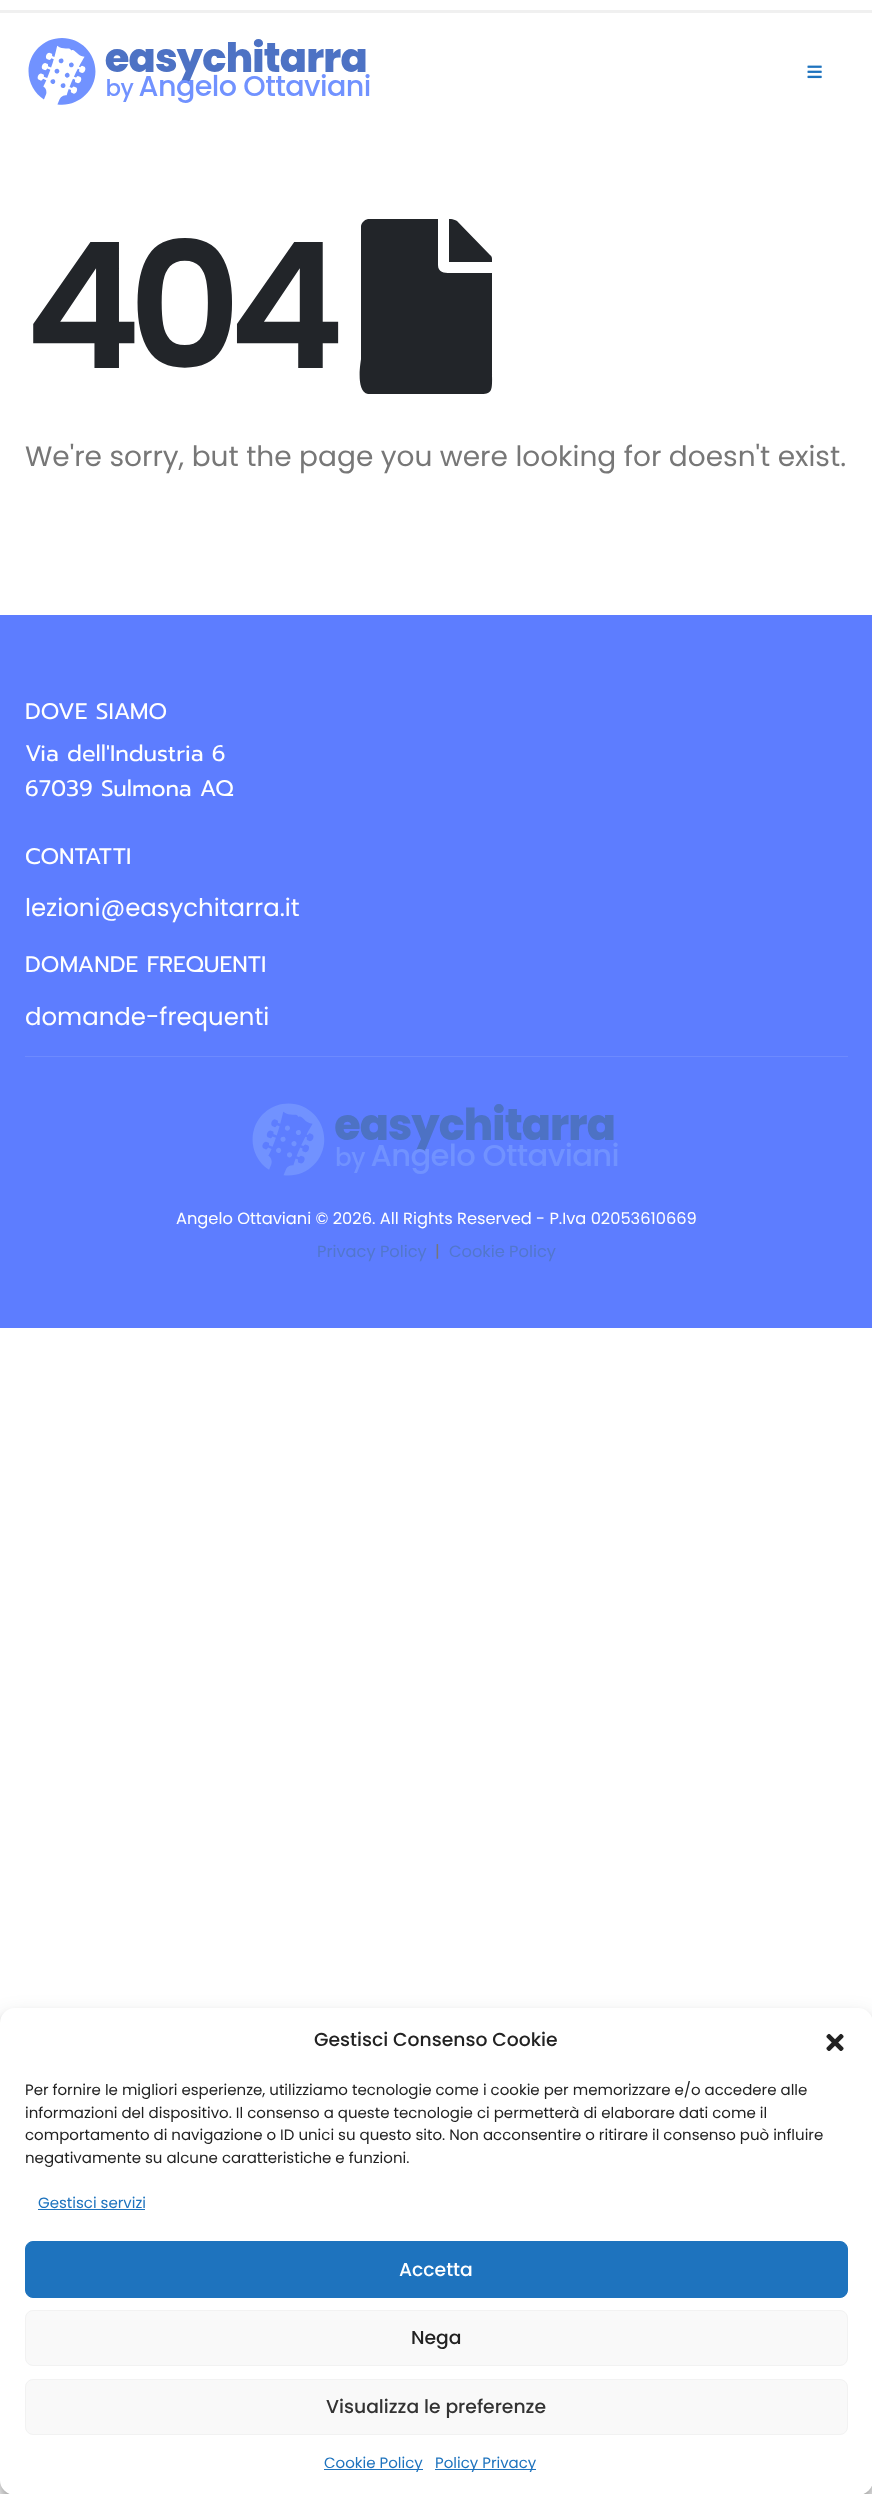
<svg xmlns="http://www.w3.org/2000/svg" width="872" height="2494">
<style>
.a{font:600 175px Poppins;letter-spacing:-12.5px;fill:#222529}
.b{font:28px Poppins;fill:#777}
.c{font:22.5px Prompt;fill:#fff}
.d{font:24.4px Poppins;fill:#fff}
.e{font:16.25px Poppins;fill:#fff}
.f{font:16.25px Poppins;fill:#5277cc}
.g{font:16.25px Poppins;fill:#777}
.h{font:500 18.75px Poppins;fill:#222}
.i{font:15px Poppins;fill:#222}
.j{font:15px Poppins;fill:#1e73be}
.k{font:500 18.75px Poppins;fill:#fff}
.l{font:500 18.75px Poppins;fill:#333}
</style>
<rect width="100%" height="100%" fill="#fff"/>
<path fill="#f0f0f0" d="M0 10h872v3H0z"/>
<image href="1.png" x="28" y="38" width="342" height="67"/>
<image href="2.png" x="807" y="65" width="15" height="14"/>
<path fill="#222529" d="M438 265v-46h-70c-4 1-7 4-7 8v132c0 2-6 32 7 35h97c30 0 27 3 27-27v-94h-38c-7 0-16 1-16-8zm54-5v2h-43v-43h2c2 0 4 1 6 2l33 34c2 1 2 3 2 5z"/>
<path fill="#5d7dff" d="M0 615h872v713H0z"/>
<path fill="#6d8aff" d="M25 1056h823v1H25z"/>
<image href="3.png" x="252" y="1103" width="366" height="73"/>
<rect fill="#0000003b" filter="blur(4px)" y="2015" width="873" height="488" rx="15"/>
<rect fill="#00000030" filter="blur(12.5px)" y="2020" width="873" height="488" rx="15"/>
<rect fill="#fff" y="2008" width="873" height="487" rx="15"/>
<image href="4.png" x="826" y="2033" width="18" height="18"/>
<path fill="#1e73be" d="M38 2209h107v1H38z"/>
<rect fill="#1e73be" stroke="#1e73be" x="25.5" y="2241.5" width="822" height="56" rx="7.5"/>
<rect fill="#f9f9f9" stroke="#f2f2f2" x="25.5" y="2310.5" width="822" height="55" rx="7.5"/>
<rect fill="#f9f9f9" stroke="#f2f2f2" x="25.5" y="2379.5" width="822" height="55" rx="7.5"/>
<path fill="#1e73be" d="M324 2469h99v1H324z"/>
<path fill="#1e73be" d="M435 2469h101v1H435z"/>
<text class="a" x="25" y="368">404</text>
<text class="b" x="25" y="466">We're sorry, but the page you were looking for doesn't exist.</text>
<text class="c" x="25" y="719">DOVE SIAMO</text>
<text class="c" x="25" y="761">Via dell'Industria 6</text>
<text class="c" x="25" y="796">67039 Sulmona AQ</text>
<text class="c" x="25" y="864">CONTATTI</text>
<text class="d" x="25" y="916">lezioni@easychitarra.it</text>
<text class="c" x="25" y="972">DOMANDE FREQUENTI</text>
<text class="d" x="25" y="1025">domande-frequenti</text>
<text class="e" x="176" y="1224">Angelo Ottaviani © 2026. All Rights Reserved - P.Iva 02053610669</text>
<text class="f" x="317" y="1257">Privacy Policy</text>
<text class="g" x="435" y="1257">|</text>
<text class="f" x="449" y="1257">Cookie Policy</text>
<text class="h" x="314" y="2046">Gestisci Consenso Cookie</text>
<text class="i" x="25" y="2095">Per fornire le migliori esperienze, utilizziamo tecnologie come i cookie per memorizzare e/o accedere alle</text>
<text class="i" x="25" y="2118">informazioni del dispositivo. Il consenso a queste tecnologie ci permetterà di elaborare dati come il</text>
<text class="i" x="25" y="2140">comportamento di navigazione o ID unici su questo sito. Non acconsentire o ritirare il consenso può influire</text>
<text class="i" x="25" y="2163">negativamente su alcune caratteristiche e funzioni.</text>
<text class="j" x="38" y="2208">Gestisci servizi</text>
<text class="k" x="399" y="2276">Accetta</text>
<text class="h" x="411" y="2344">Nega</text>
<text class="l" x="326" y="2413">Visualizza le preferenze</text>
<text class="j" x="324" y="2468">Cookie Policy</text>
<text class="j" x="435" y="2468">Policy Privacy</text>
</svg>
